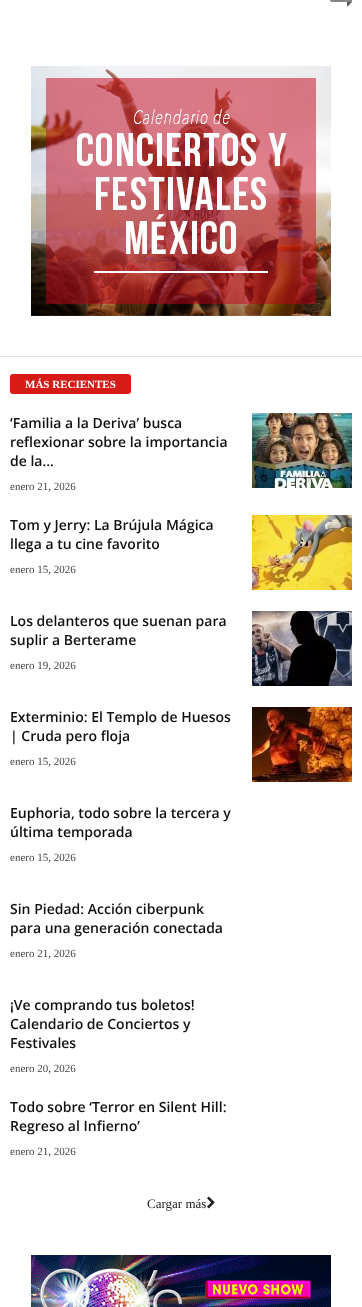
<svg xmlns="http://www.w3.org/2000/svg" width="362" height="1307">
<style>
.a{font:bold 11px Liberation Serif;fill:#fff}
.b{font:600 14px Open Sans;fill:#111}
.c{font:11px Liberation Serif;fill:#444}
.d{font:13px Liberation Serif;fill:#222}
</style>
<rect width="100%" height="100%" fill="#fff"/>
<path fill="#848484" d="M332-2h18c1 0 2 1 2 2v2h-20c-1 0-2-1-2-2c0-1 1-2 2-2z"/>
<path fill="#5b5b5b" d="M347 2h5l-5 5z"/>
<image href="1.png" x="31" y="66" width="300" height="250"/>
<path fill="#e6e6e6" d="M0 356h362v1H0z"/>
<rect fill="#d41b16" x="10" y="374" width="121" height="20" rx="3"/>
<image href="2.png" x="252" y="413" width="100" height="75"/>
<image href="3.png" x="252" y="515" width="100" height="75"/>
<image href="4.png" x="252" y="611" width="100" height="75"/>
<image href="5.png" x="252" y="707" width="100" height="75"/>
<image href="6.png" x="207" y="1196" width="8" height="13"/>
<image href="7.png" x="31" y="1255" width="300" height="52"/>
<text class="a" x="25" y="388">MÁS RECIENTES</text>
<text class="b" x="10" y="428">‘Familia a la Deriva’ busca</text>
<text class="b" x="10" y="447">reflexionar sobre la importancia</text>
<text class="b" x="10" y="466">de la...</text>
<text class="c" x="10" y="490">enero 21, 2026</text>
<text class="b" x="10" y="530">Tom y Jerry: La Brújula Mágica</text>
<text class="b" x="10" y="549">llega a tu cine favorito</text>
<text class="c" x="10" y="573">enero 15, 2026</text>
<text class="b" x="10" y="626">Los delanteros que suenan para</text>
<text class="b" x="10" y="645">suplir a Berterame</text>
<text class="c" x="10" y="669">enero 19, 2026</text>
<text class="b" x="10" y="722">Exterminio: El Templo de Huesos</text>
<text class="b" x="10" y="741">| Cruda pero floja</text>
<text class="c" x="10" y="765">enero 15, 2026</text>
<text class="b" x="10" y="818">Euphoria, todo sobre la tercera y</text>
<text class="b" x="10" y="837">última temporada</text>
<text class="c" x="10" y="861">enero 15, 2026</text>
<text class="b" x="10" y="914">Sin Piedad: Acción ciberpunk</text>
<text class="b" x="10" y="933">para una generación conectada</text>
<text class="c" x="10" y="957">enero 21, 2026</text>
<text class="b" x="10" y="1010">¡Ve comprando tus boletos!</text>
<text class="b" x="10" y="1029">Calendario de Conciertos y</text>
<text class="b" x="10" y="1048">Festivales</text>
<text class="c" x="10" y="1072">enero 20, 2026</text>
<text class="b" x="10" y="1112">Todo sobre ‘Terror en Silent Hill:</text>
<text class="b" x="10" y="1131">Regreso al Infierno’</text>
<text class="c" x="10" y="1155">enero 21, 2026</text>
<text class="d" x="147" y="1208">Cargar más</text>
</svg>
